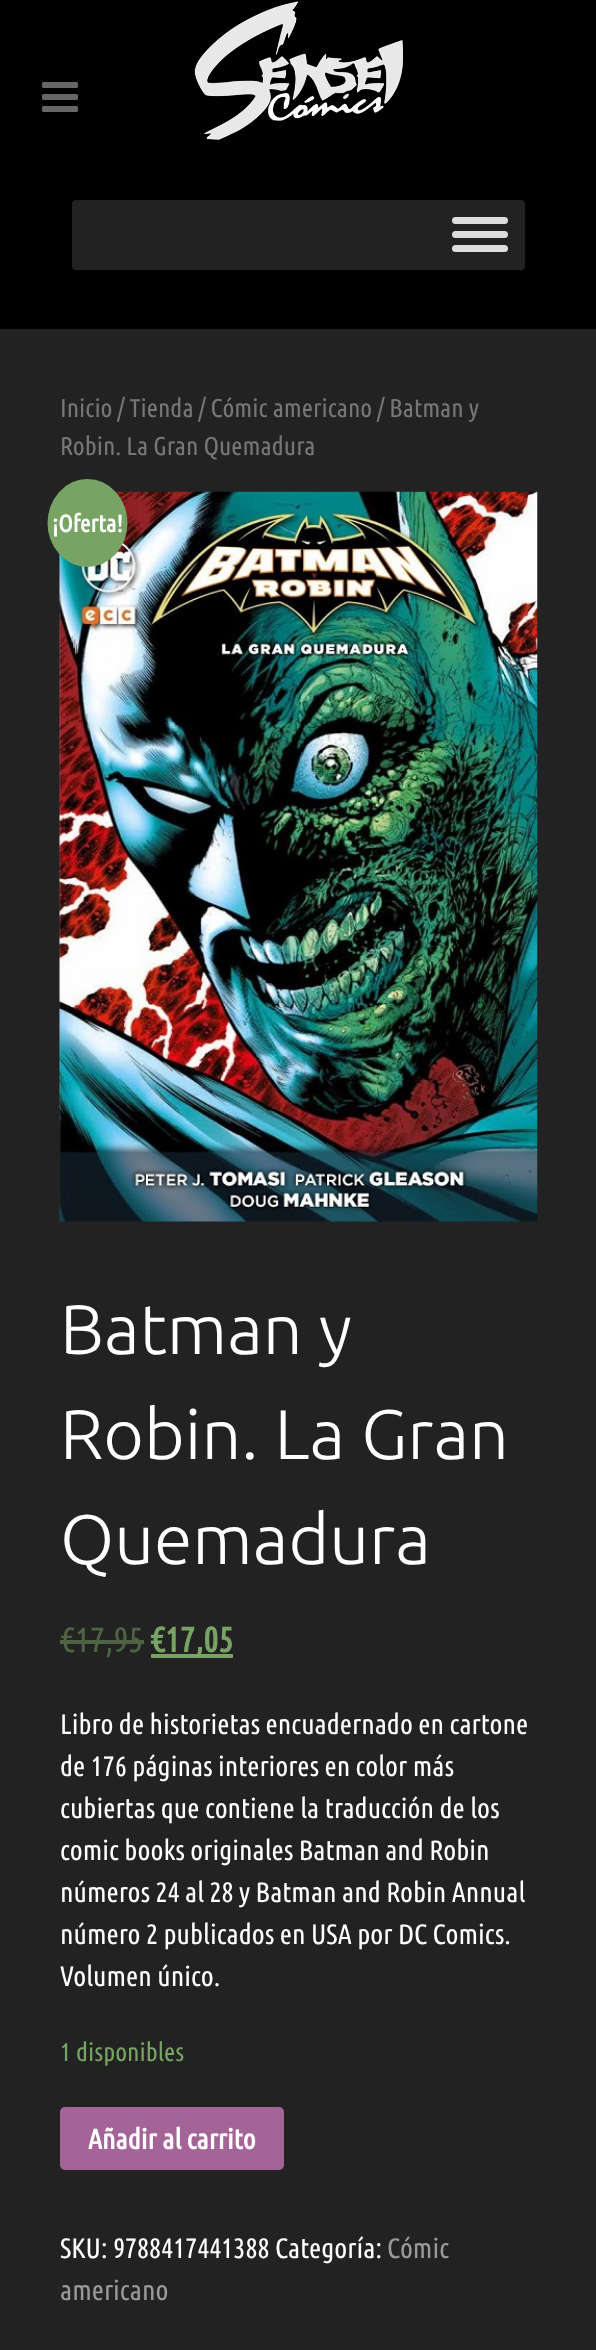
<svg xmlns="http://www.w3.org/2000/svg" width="596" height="2350">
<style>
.a{font:25.75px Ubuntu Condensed;fill:#767676}
.b{font:bold 24px Ubuntu Condensed;fill:#fff}
.c{font:300 70px Ubuntu;fill:#fff}
.d{font:35px Ubuntu Condensed;fill:#4d6343}
.e{font:bold 35px Ubuntu Condensed;fill:#77a464}
.f{font:28px Ubuntu Condensed;fill:#fff}
.g{font:25.75px Ubuntu Condensed;fill:#77a464}
.h{font:bold 28px Ubuntu Condensed;fill:#fff}
.i{font:28px Ubuntu Condensed;fill:#999}
</style>
<rect width="100%" height="100%" fill="#222"/>
<path fill="#000" d="M0 0h596v329H0z"/>
<image href="1.png" x="194" y="1" width="209" height="139"/>
<rect fill="#222" x="72" y="200" width="453" height="70" rx="4"/>
<rect fill="#ddd" x="452" y="217" width="56" height="7" rx="3.5"/>
<rect fill="#ddd" x="452" y="231" width="56" height="7" rx="3.5"/>
<rect fill="#ddd" x="452" y="245" width="56" height="7" rx="3.5"/>
<image href="2.png" x="42" y="82" width="36" height="30"/>
<image href="3.png" x="59" y="491" width="479" height="731"/>
<ellipse fill="#77a464" cx="87.5" cy="523" rx="40" ry="44"/>
<path fill="#4d6343" d="M60 1640h84v4H60z"/>
<path fill="#77a464" d="M151 1654h82v4H151z"/>
<rect fill="#a46497" x="60" y="2107" width="224" height="63" rx="5"/>
<text class="a" x="60" y="417">Inicio / Tienda / Cómic americano / Batman y</text>
<text class="a" x="60" y="455">Robin. La Gran Quemadura</text>
<text class="b" x="52" y="532">¡Oferta!</text>
<text class="c" x="60" y="1354">Batman y</text>
<text class="c" x="60" y="1459">Robin. La Gran</text>
<text class="c" x="60" y="1564">Quemadura</text>
<text class="d" x="60" y="1652">€17,95</text>
<text class="e" x="150" y="1652">€17,05</text>
<text class="f" x="60" y="1734">Libro de historietas encuadernado en cartone</text>
<text class="f" x="60" y="1776">de 176 páginas interiores en color más</text>
<text class="f" x="60" y="1818">cubiertas que contiene la traducción de los</text>
<text class="f" x="60" y="1860">comic books originales Batman and Robin</text>
<text class="f" x="60" y="1902">números 24 al 28 y Batman and Robin Annual</text>
<text class="f" x="60" y="1944">número 2 publicados en USA por DC Comics.</text>
<text class="f" x="60" y="1986">Volumen único.</text>
<text class="g" x="60" y="2061">1 disponibles</text>
<text class="h" x="88" y="2149">Añadir al carrito</text>
<text class="f" x="60" y="2258">SKU: 9788417441388 Categoría:</text>
<text class="i" x="387" y="2258">Cómic</text>
<text class="i" x="60" y="2300">americano</text>
</svg>
